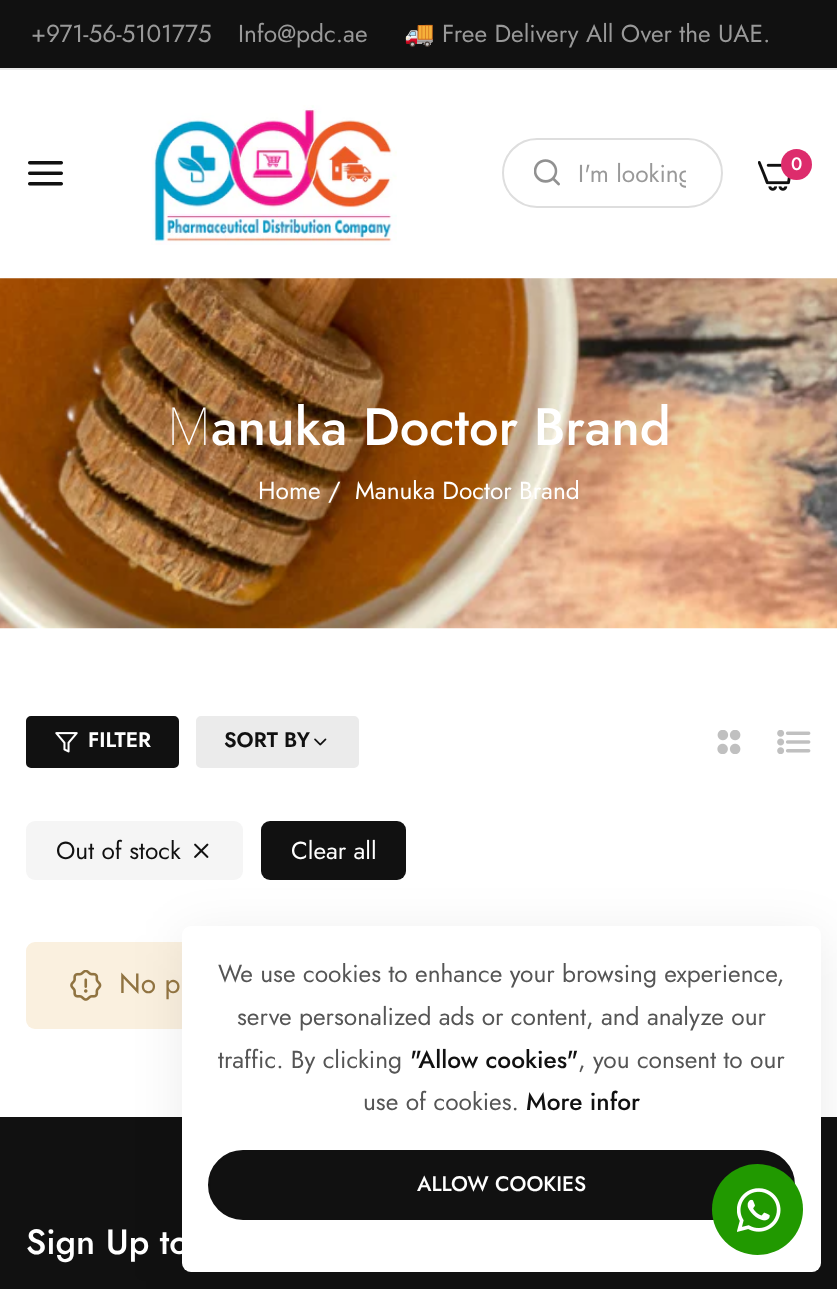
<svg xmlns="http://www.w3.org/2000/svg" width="837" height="1289">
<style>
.a{font:24.5px Jost;fill:#999}
.b{font:24.5px Noto Color Emoji;fill:#999}
.c{font:500 18px Jost;fill:#fff}
.d{font:100 52.5px Noto Sans;fill:#fff}
.e{font:500 52.5px Jost;fill:#fff}
.f{font:24.5px Jost;fill:#fff}
.g{font:600 21px Jost;fill:#fff}
.h{font:600 21px Jost;fill:#111}
.i{font:24.5px Jost;fill:#111}
.j{font:28px Jost;fill:#907341}
.k{font:500 35px Jost;fill:#fff}
.l{font:24.5px Jost;fill:#555}
.m{font:500 24.5px Jost;fill:#111}
.n{font:500 21px Jost;fill:#fff}
</style>
<defs>
<clipPath id="clip1"><path d="M578 156h108v35H578z"/></clipPath>
</defs>
<rect width="100%" height="100%" fill="#fff"/>
<path fill="#111" d="M0 0h837v68H0z"/>
<path fill="#ebebeb" d="M0 68h837v2H0z"/>
<image href="1.png" x="28" y="161" width="35" height="25"/>
<image href="2.png" x="151" y="105" width="246" height="140"/>
<rect fill="none" stroke="#dedede" stroke-width="2" x="503" y="139" width="219" height="68" rx="34"/>
<image href="3.png" x="534" y="159" width="26" height="27"/>
<image href="4.png" x="758" y="161" width="33" height="30"/>
<circle fill="#dd2c6c" cx="796.5" cy="164.5" r="15.5"/>
<image href="5.png" x="0" y="278" width="837" height="351"/>
<rect fill="#111" stroke="#111" stroke-width="2" x="27" y="717" width="151" height="50" rx="4"/>
<image href="6.png" x="55" y="732" width="23" height="21"/>
<rect fill="#ebebeb" stroke="#ebebeb" stroke-width="2" x="197" y="717" width="161" height="50" rx="4"/>
<image href="7.png" x="314" y="738" width="13" height="8"/>
<image href="8.png" x="717" y="730" width="24" height="24"/>
<image href="9.png" x="777" y="730" width="34" height="24"/>
<rect fill="#f5f5f5" x="26" y="821" width="217" height="59" rx="9"/>
<image href="10.png" x="194" y="843" width="15" height="15"/>
<rect fill="#111" x="261" y="821" width="145" height="59" rx="9"/>
<rect fill="#faf0df" x="26" y="942" width="786" height="87" rx="9"/>
<image href="11.png" x="70" y="970" width="32" height="31"/>
<path fill="#111" d="M0 1117h837v172H0z"/>
<rect fill="#00000014" filter="blur(26px)" x="182" y="935" width="639" height="346" rx="9"/>
<rect fill="#fff" x="182" y="926" width="639" height="346" rx="9"/>
<rect fill="#111" stroke="#111" stroke-width="2" x="209" y="1151" width="585" height="68" rx="34"/>
<circle fill="#219900" cx="757.5" cy="1209.5" r="45.5"/>
<image href="12.png" x="737" y="1188" width="44" height="44"/>
<text class="a" x="31" y="42">+971-56-5101775</text>
<text class="a" x="238" y="42">Info@pdc.ae</text>
<text class="b" x="404" y="42">🚚</text>
<text class="a" x="442" y="42">Free Delivery All Over the UAE.</text>
<g clip-path="url(#clip1)">
<text class="a" x="578" y="182">I'm looking</text>
</g>
<text class="c" x="791" y="170">0</text>
<text class="d" x="167" y="445">M</text>
<text class="e" x="211" y="445">anuka Doctor Brand</text>
<text class="f" x="258" y="499">Home /</text>
<text class="f" x="355" y="499">Manuka Doctor Brand</text>
<text class="g" x="88" y="747">FILTER</text>
<text class="h" x="224" y="747">SORT BY</text>
<text class="i" x="56" y="859">Out of stock</text>
<text class="f" x="291" y="859">Clear all</text>
<text class="j" x="119" y="993">No p</text>
<text class="k" x="26" y="1254">Sign Up to</text>
<text class="l" x="218" y="982">We use cookies to enhance your browsing experience,</text>
<text class="l" x="237" y="1025">serve personalized ads or content, and analyze our</text>
<text class="l" x="218" y="1068">traffic. By clicking</text>
<text class="m" x="410" y="1068">"Allow cookies"</text>
<text class="l" x="578" y="1068">, you consent to our</text>
<text class="l" x="363" y="1110">use of cookies.</text>
<text class="m" x="526" y="1110">More infor</text>
<text class="n" x="417" y="1191">ALLOW COOKIES</text>
</svg>
